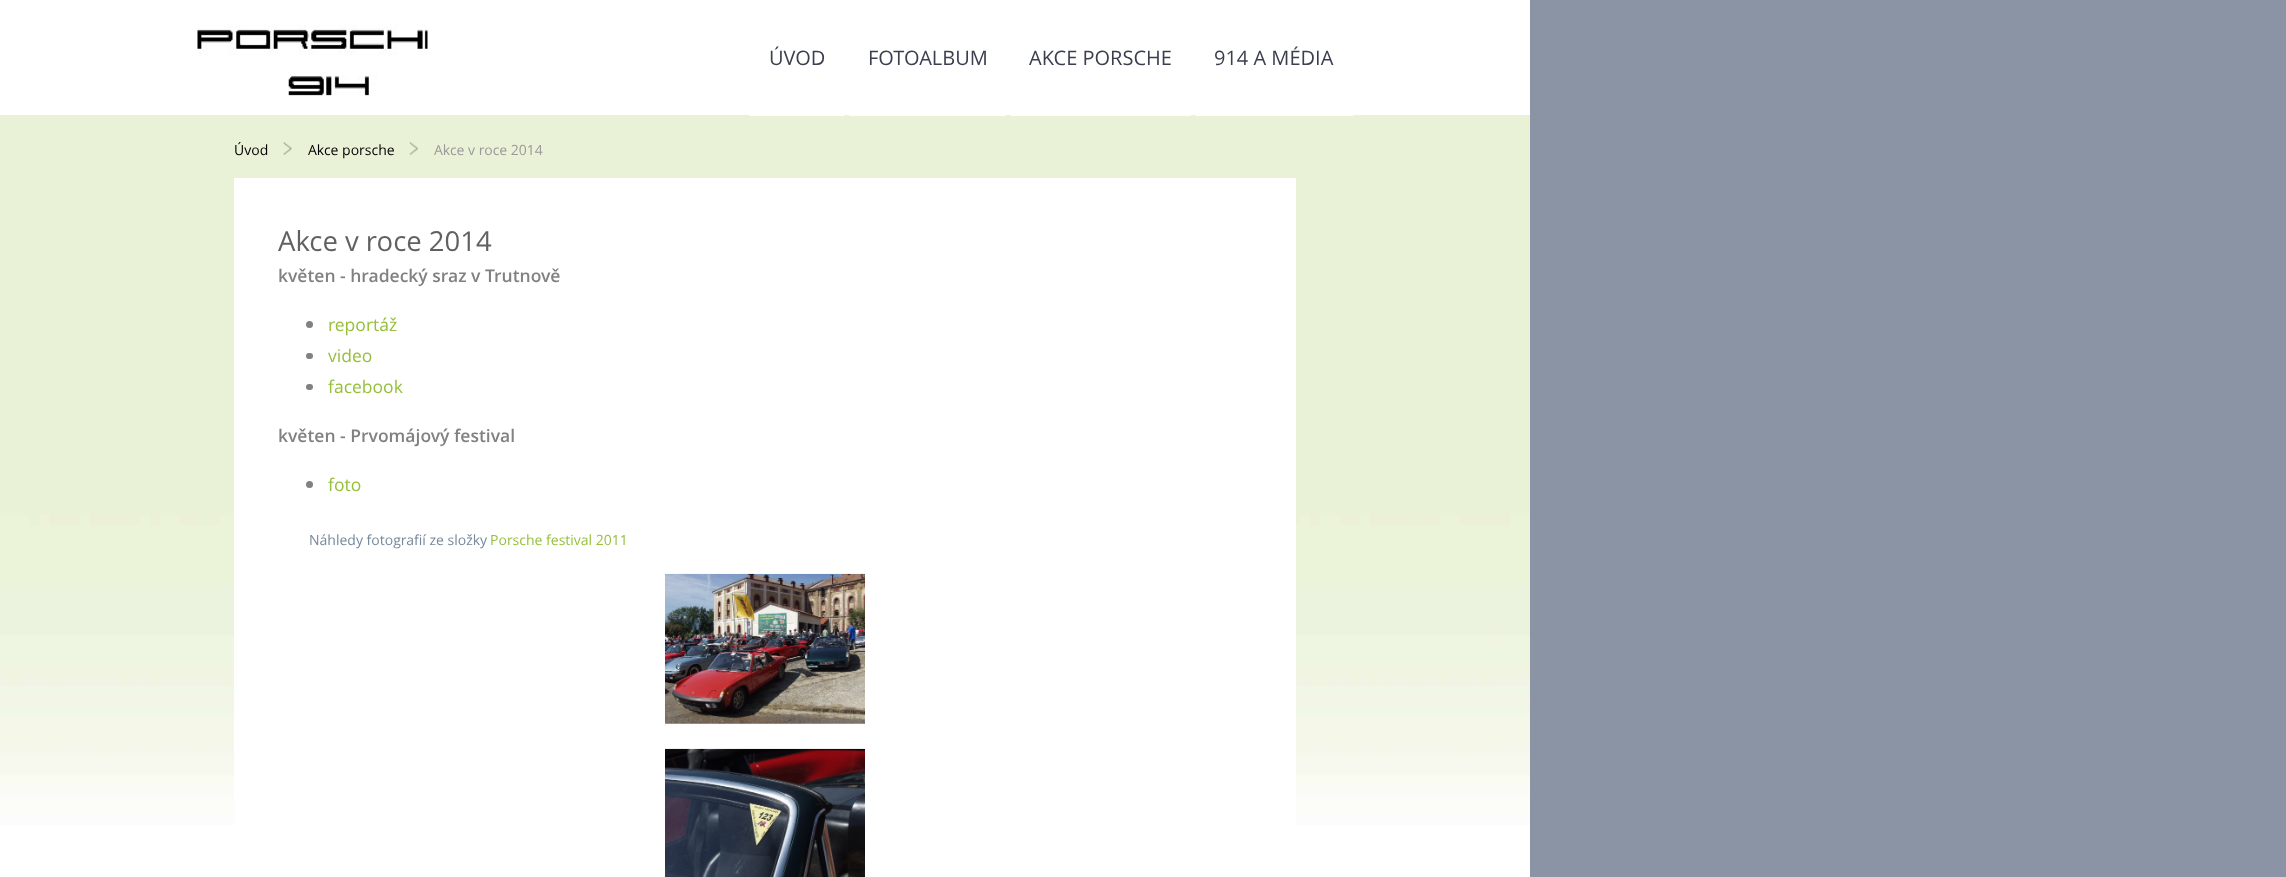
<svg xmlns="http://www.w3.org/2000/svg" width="2286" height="877">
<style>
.a{font:20px Open Sans;fill:#3b3e4f}
.b{font:14px Open Sans;fill:#000}
.c{font:14px Open Sans;fill:#999}
.d{font:27.5px Open Sans;fill:#616161}
.e{font:600 17.5px Open Sans;fill:#818181}
.f{font:17.5px Open Sans;fill:#96bf3d}
.g{font:14px Open Sans;fill:#75889c}
.h{font:14px Open Sans;fill:#96bf3d}
</style>
<rect width="100%" height="100%" fill="#8b94a5"/>
<path fill="#fff" d="M0 0h1530v115H0z"/>
<image href="1.png" x="197" y="25" width="231" height="71"/>
<image href="2.png" x="0" y="115" width="1530" height="710"/>
<path fill="#fff" d="M750 115h94v1H750z"/>
<path fill="#fff" d="M849 115h157v1H849z"/>
<path fill="#fff" d="M1011 115h180v1H1011z"/>
<path fill="#fff" d="M1196 115h157v1H1196z"/>
<path fill="#fff" d="M0 825h1530v52H0z"/>
<image href="3.png" x="283" y="142" width="9" height="13"/>
<image href="4.png" x="409" y="142" width="9" height="13"/>
<path fill="#fff" d="M234 178h1062v647H234z"/>
<circle fill="#818181" cx="309.5" cy="324.5" r="3.5"/>
<rect fill="#818181" x="306" y="353" width="7" height="6" rx="3"/>
<rect fill="#818181" x="306" y="384" width="7" height="6" rx="3"/>
<circle fill="#818181" cx="309.5" cy="484.5" r="3.5"/>
<image href="5.png" x="665" y="573" width="200" height="151"/>
<image href="6.png" x="665" y="748" width="200" height="129"/>
<text class="a" x="769" y="65">ÚVOD</text>
<text class="a" x="868" y="65">FOTOALBUM</text>
<text class="a" x="1029" y="65">AKCE PORSCHE</text>
<text class="a" x="1214" y="65">914 A MÉDIA</text>
<text class="b" x="234" y="155">Úvod</text>
<text class="b" x="308" y="155">Akce porsche</text>
<text class="c" x="434" y="155">Akce v roce 2014</text>
<text class="d" x="278" y="251">Akce v roce 2014</text>
<text class="e" x="278" y="282">květen - hradecký sraz v Trutnově</text>
<text class="f" x="328" y="331">reportáž</text>
<text class="f" x="328" y="362">video</text>
<text class="f" x="328" y="393">facebook</text>
<text class="e" x="278" y="442">květen - Prvomájový festival</text>
<text class="f" x="328" y="491">foto</text>
<text class="g" x="309" y="545">Náhledy fotografií ze složky</text>
<text class="h" x="490" y="545">Porsche festival 2011</text>
</svg>
